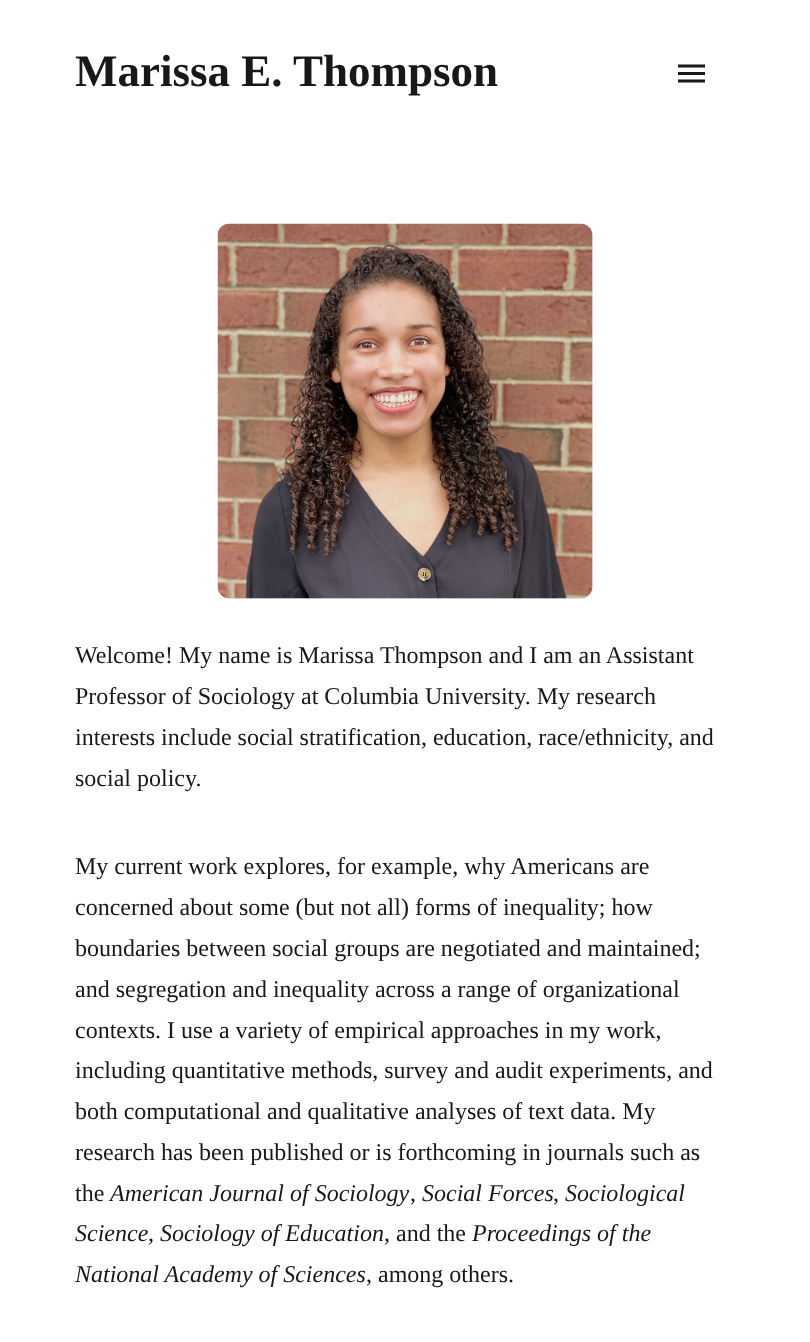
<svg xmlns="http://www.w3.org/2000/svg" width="810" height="1342">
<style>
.a{font:bold 45px Liberation Serif;fill:#181818}
.b{font:24px Liberation Serif;fill:#181818}
.c{font:italic 24px Liberation Serif;fill:#181818}
</style>
<rect width="100%" height="100%" fill="#fff"/>
<image href="1.png" x="678" y="64" width="27" height="19"/>
<rect fill="#ededf1" x="218" y="224" width="375" height="375" rx="12"/>
<image href="2.png" x="217" y="223" width="376" height="376"/>
<text class="a" x="75" y="86">Marissa E. Thompson</text>
<text class="b" x="75" y="663">Welcome! My name is Marissa Thompson and I am an Assistant</text>
<text class="b" x="75" y="704">Professor of Sociology at Columbia University. My research</text>
<text class="b" x="75" y="745">interests include social stratification, education, race/ethnicity, and</text>
<text class="b" x="75" y="786">social policy.</text>
<text class="b" x="75" y="874">My current work explores, for example, why Americans are</text>
<text class="b" x="75" y="915">concerned about some (but not all) forms of inequality; how</text>
<text class="b" x="75" y="956">boundaries between social groups are negotiated and maintained;</text>
<text class="b" x="75" y="997">and segregation and inequality across a range of organizational</text>
<text class="b" x="75" y="1038">contexts. I use a variety of empirical approaches in my work,</text>
<text class="b" x="75" y="1078">including quantitative methods, survey and audit experiments, and</text>
<text class="b" x="75" y="1119">both computational and qualitative analyses of text data. My</text>
<text class="b" x="75" y="1160">research has been published or is forthcoming in journals such as</text>
<text class="b" x="75" y="1201">the</text>
<text class="c" x="110" y="1201">American Journal of Sociology</text>
<text class="b" x="410" y="1201">,</text>
<text class="c" x="422" y="1201">Social Forces</text>
<text class="b" x="553" y="1201">,</text>
<text class="c" x="565" y="1201">Sociological</text>
<text class="c" x="75" y="1241">Science</text>
<text class="b" x="148" y="1241">,</text>
<text class="c" x="160" y="1241">Sociology of Education</text>
<text class="b" x="384" y="1241">, and the</text>
<text class="c" x="472" y="1241">Proceedings of the</text>
<text class="c" x="75" y="1282">National Academy of Sciences</text>
<text class="b" x="366" y="1282">, among others.</text>
</svg>
